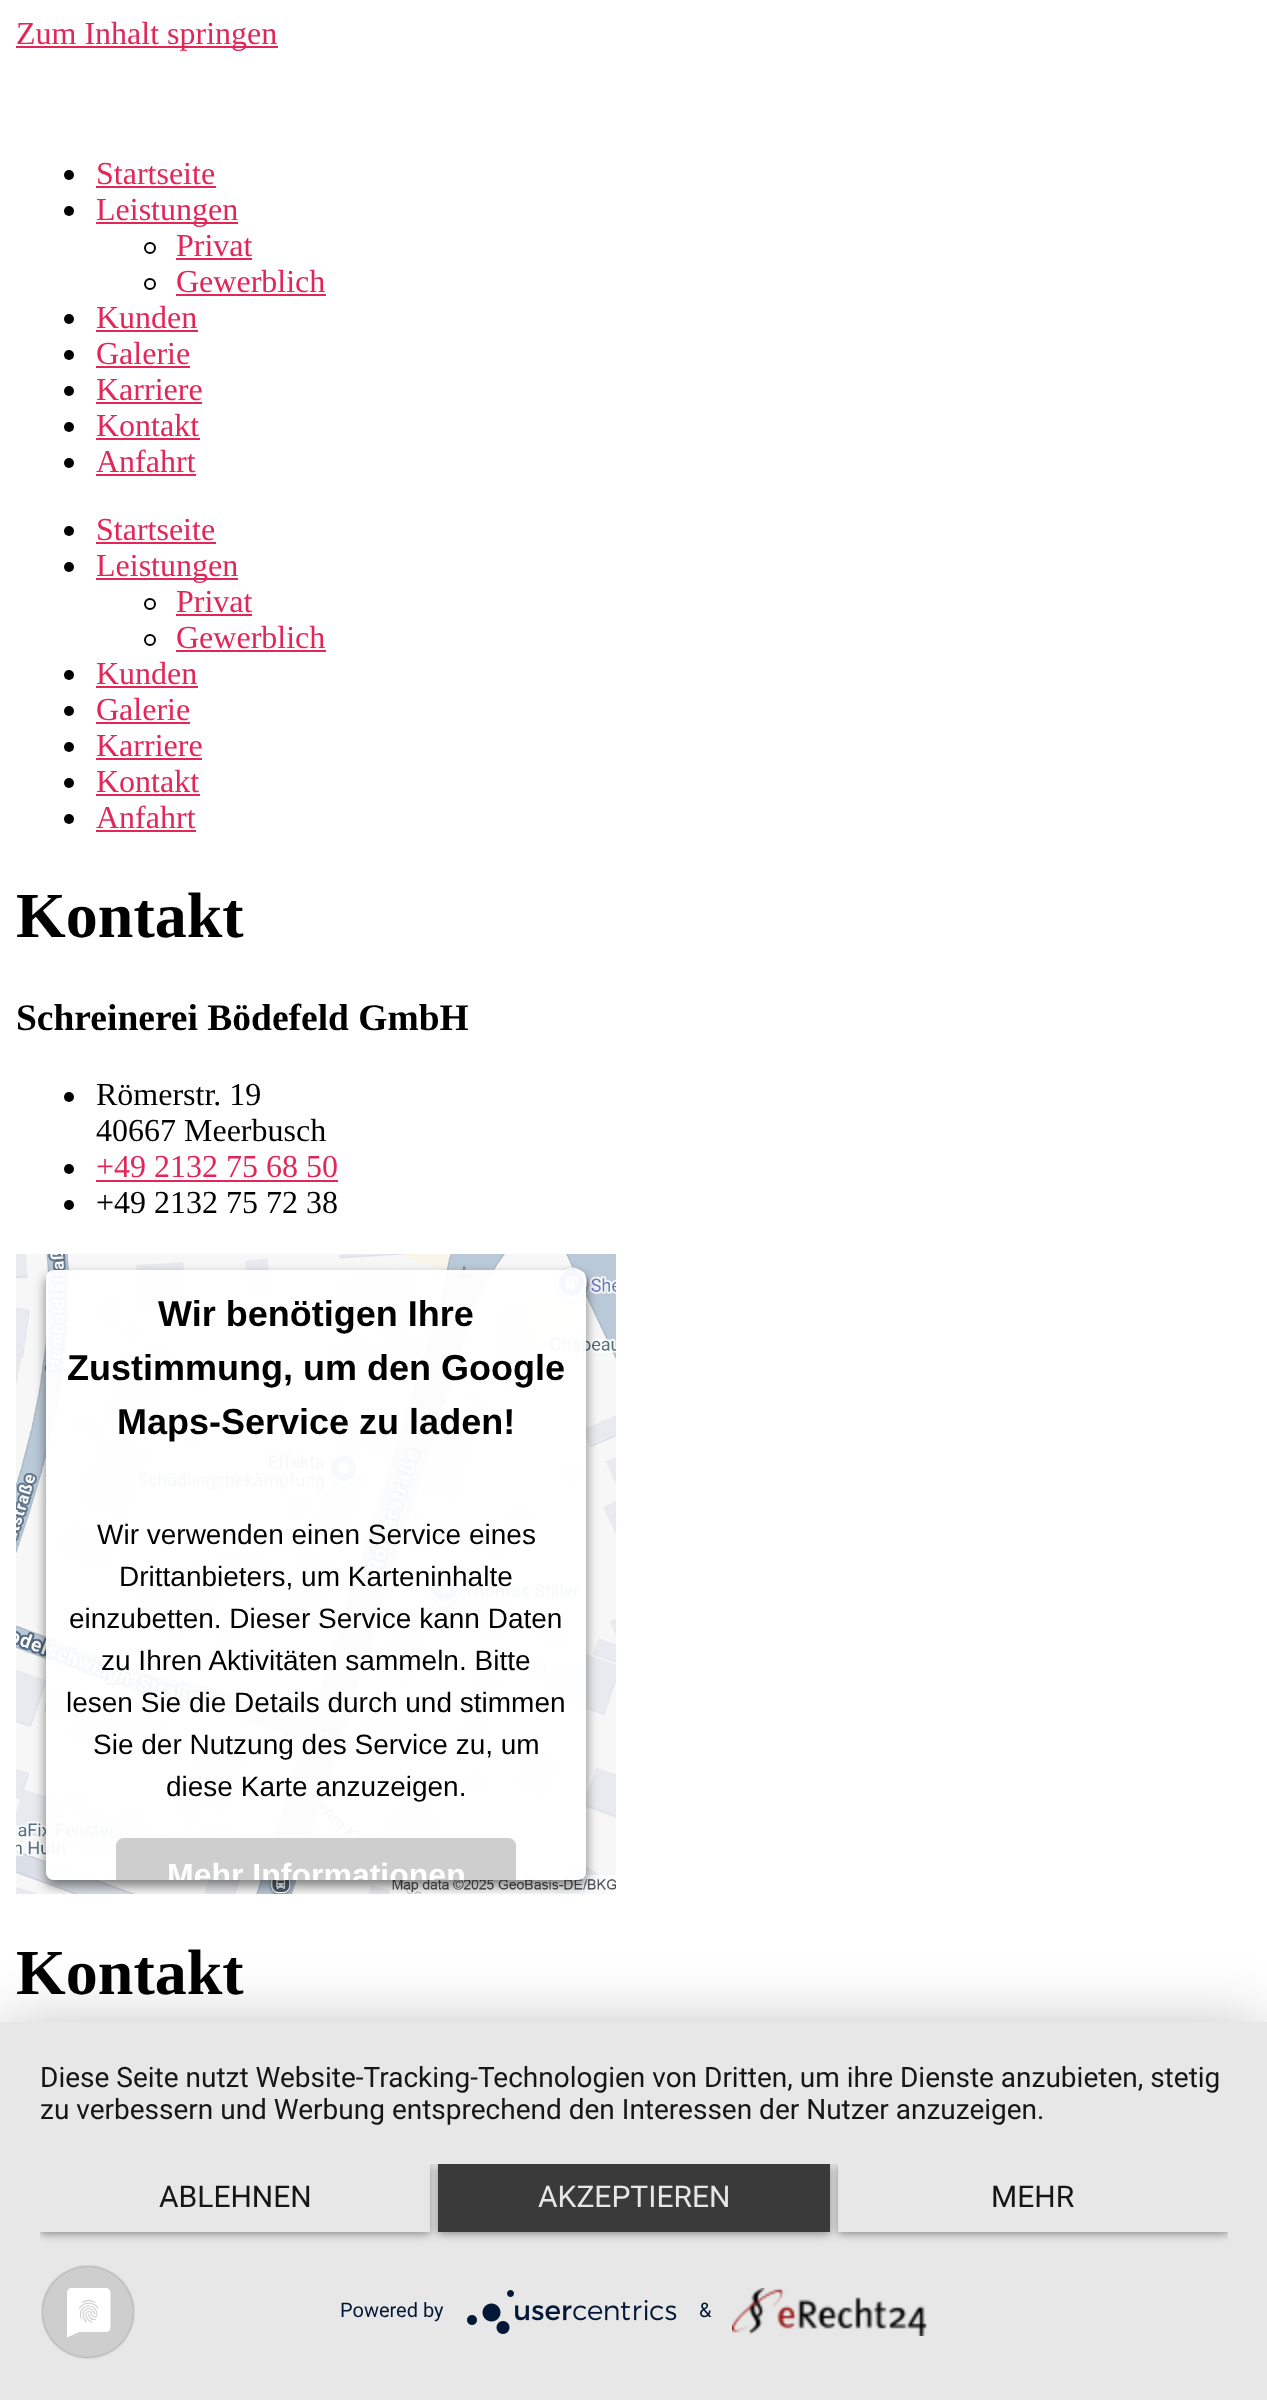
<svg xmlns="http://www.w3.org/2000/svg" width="1267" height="2400">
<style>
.a{font:32px Liberation Serif;fill:#e22658}
.b{font:bold 64px Liberation Serif;fill:#000}
.c{font:bold 37.5px Liberation Serif;fill:#000}
.d{font:32px Liberation Serif;fill:#000}
.e{font:bold 36px Liberation Sans;fill:#000}
.f{font:28px Liberation Sans;fill:#000}
.g{font:bold 32px Liberation Sans;fill:#fff}
.h{font:28px Roboto;fill:#161616}
.i{font:30px Roboto;fill:#161616}
.j{font:30px Roboto;fill:#e6e6e6}
.k{font:20px Roboto;fill:#021836}
</style>
<defs>
<clipPath id="clip1"><path d="M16 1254h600v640H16z"/></clipPath>
<clipPath id="clip2"><path d="M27 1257h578v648h-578zm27 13h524c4.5 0 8 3.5 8 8v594c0 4.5-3.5 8-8 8h-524c-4.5 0-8-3.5-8-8v-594c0-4.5 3.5-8 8-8z" clip-rule="evenodd"/></clipPath>
<clipPath id="clip3"><path d="M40 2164h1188v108H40z"/></clipPath>
<clipPath id="clip4"><path d="M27 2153h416v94h-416zm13 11h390v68h-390z" clip-rule="evenodd"/></clipPath>
<clipPath id="clip5"><path d="M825 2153h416v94h-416zm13 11h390v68h-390z" clip-rule="evenodd"/></clipPath>
<clipPath id="clip6"><rect x="46" y="1270" width="540" height="610" rx="8"/></clipPath>
</defs>
<rect width="100%" height="100%" fill="#fff"/>
<path fill="#e22658" d="M16 46h262v2H16z"/>
<circle fill="#000" cx="69" cy="175" r="5"/>
<path fill="#e22658" d="M96 186h120v2H96z"/>
<circle fill="#000" cx="69" cy="211" r="5"/>
<path fill="#e22658" d="M96 222h142v2H96z"/>
<circle fill="none" stroke="#000" stroke-width="2" cx="150" cy="248" r="5"/>
<path fill="#e22658" d="M176 258h76v2H176z"/>
<circle fill="none" stroke="#000" stroke-width="2" cx="150" cy="284" r="5"/>
<path fill="#e22658" d="M176 294h150v2H176z"/>
<circle fill="#000" cx="69" cy="319" r="5"/>
<path fill="#e22658" d="M96 330h102v2H96z"/>
<circle fill="#000" cx="69" cy="355" r="5"/>
<path fill="#e22658" d="M96 366h94v2H96z"/>
<circle fill="#000" cx="69" cy="391" r="5"/>
<path fill="#e22658" d="M96 402h106v2H96z"/>
<circle fill="#000" cx="69" cy="427" r="5"/>
<path fill="#e22658" d="M96 438h104v2H96z"/>
<circle fill="#000" cx="69" cy="463" r="5"/>
<path fill="#e22658" d="M96 474h100v2H96z"/>
<circle fill="#000" cx="69" cy="531" r="5"/>
<path fill="#e22658" d="M96 542h120v2H96z"/>
<circle fill="#000" cx="69" cy="567" r="5"/>
<path fill="#e22658" d="M96 578h142v2H96z"/>
<circle fill="none" stroke="#000" stroke-width="2" cx="150" cy="604" r="5"/>
<path fill="#e22658" d="M176 614h76v2H176z"/>
<circle fill="none" stroke="#000" stroke-width="2" cx="150" cy="640" r="5"/>
<path fill="#e22658" d="M176 650h150v2H176z"/>
<circle fill="#000" cx="69" cy="675" r="5"/>
<path fill="#e22658" d="M96 686h102v2H96z"/>
<circle fill="#000" cx="69" cy="711" r="5"/>
<path fill="#e22658" d="M96 722h94v2H96z"/>
<circle fill="#000" cx="69" cy="747" r="5"/>
<path fill="#e22658" d="M96 758h106v2H96z"/>
<circle fill="#000" cx="69" cy="783" r="5"/>
<path fill="#e22658" d="M96 794h104v2H96z"/>
<circle fill="#000" cx="69" cy="819" r="5"/>
<path fill="#e22658" d="M96 830h100v2H96z"/>
<circle fill="#000" cx="69" cy="1097" r="5"/>
<circle fill="#000" cx="69" cy="1169" r="5"/>
<path fill="#e22658" d="M96 1180h242v2H96z"/>
<circle fill="#000" cx="69" cy="1205" r="5"/>
<image href="1.png" x="16" y="1254" width="600" height="640"/>
<g clip-path="url(#clip1)">
<g clip-path="url(#clip2)">
<rect fill="#00000080" filter="blur(6px)" x="46" y="1276" width="540" height="610" rx="8"/>
</g>
</g>
<rect fill="#fffffff2" x="46" y="1270" width="540" height="610" rx="8"/>
<path fill="#cecece" d="M124 1838h384c4.5 0 8 3.5 8 8v34h-400v-34c0-4.5 3.5-8 8-8z"/>
<path fill="#0000004d" filter="blur(36px)" d="M0 2034h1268v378H0z"/>
<path fill="#e7e7e7" d="M0 2022h1267v378H0z"/>
<g clip-path="url(#clip3)">
<g clip-path="url(#clip4)">
<path fill="#00000066" filter="blur(4px)" d="M40 2166h390v68H40z"/>
</g>
</g>
<g clip-path="url(#clip3)">
<path fill="#00000066" filter="blur(4px)" d="M438 2166h392v68H438z"/>
</g>
<path fill="#3a3a3a" d="M438 2164h392v68H438z"/>
<g clip-path="url(#clip3)">
<g clip-path="url(#clip5)">
<path fill="#00000066" filter="blur(4px)" d="M838 2166h390v68H838z"/>
</g>
</g>
<image href="2.png" x="467" y="2290" width="210" height="44"/>
<image href="3.png" x="732" y="2288" width="195" height="48"/>
<image href="4.png" x="41" y="2265" width="94" height="94"/>
<text class="a" x="16" y="44">Zum Inhalt springen</text>
<text class="a" x="96" y="184">Startseite</text>
<text class="a" x="96" y="220">Leistungen</text>
<text class="a" x="176" y="256">Privat</text>
<text class="a" x="176" y="292">Gewerblich</text>
<text class="a" x="96" y="328">Kunden</text>
<text class="a" x="96" y="364">Galerie</text>
<text class="a" x="96" y="400">Karriere</text>
<text class="a" x="96" y="436">Kontakt</text>
<text class="a" x="96" y="472">Anfahrt</text>
<text class="a" x="96" y="540">Startseite</text>
<text class="a" x="96" y="576">Leistungen</text>
<text class="a" x="176" y="612">Privat</text>
<text class="a" x="176" y="648">Gewerblich</text>
<text class="a" x="96" y="684">Kunden</text>
<text class="a" x="96" y="720">Galerie</text>
<text class="a" x="96" y="756">Karriere</text>
<text class="a" x="96" y="792">Kontakt</text>
<text class="a" x="96" y="828">Anfahrt</text>
<text class="b" x="16" y="937">Kontakt</text>
<text class="c" x="16" y="1030">Schreinerei Bödefeld GmbH</text>
<text class="d" x="96" y="1105">Römerstr. 19</text>
<text class="d" x="96" y="1141">40667 Meerbusch</text>
<text class="a" x="96" y="1177">+49 2132 75 68 50</text>
<text class="d" x="96" y="1213">+49 2132 75 72 38</text>
<text class="e" x="158" y="1326">Wir benötigen Ihre</text>
<text class="e" x="67" y="1380">Zustimmung, um den Google</text>
<text class="e" x="117" y="1434">Maps-Service zu laden!</text>
<text class="f" x="97" y="1544">Wir verwenden einen Service eines</text>
<text class="f" x="119" y="1586">Drittanbieters, um Karteninhalte</text>
<text class="f" x="69" y="1628">einzubetten. Dieser Service kann Daten</text>
<text class="f" x="101" y="1670">zu Ihren Aktivitäten sammeln. Bitte</text>
<text class="f" x="66" y="1712">lesen Sie die Details durch und stimmen</text>
<text class="f" x="93" y="1754">Sie der Nutzung des Service zu, um</text>
<text class="f" x="166" y="1796">diese Karte anzuzeigen.</text>
<g clip-path="url(#clip6)">
<text class="g" x="167" y="1886">Mehr Informationen</text>
</g>
<text class="b" x="16" y="1994">Kontakt</text>
<text class="h" x="40" y="2087">Diese Seite nutzt Website-Tracking-Technologien von Dritten, um ihre Dienste anzubieten, stetig</text>
<text class="h" x="40" y="2119">zu verbessern und Werbung entsprechend den Interessen der Nutzer anzuzeigen.</text>
<text class="i" x="159" y="2207">ABLEHNEN</text>
<text class="j" x="538" y="2207">AKZEPTIEREN</text>
<text class="i" x="991" y="2207">MEHR</text>
<text class="k" x="340" y="2317">Powered by</text>
<text class="k" x="699" y="2317">&amp;</text>
</svg>
